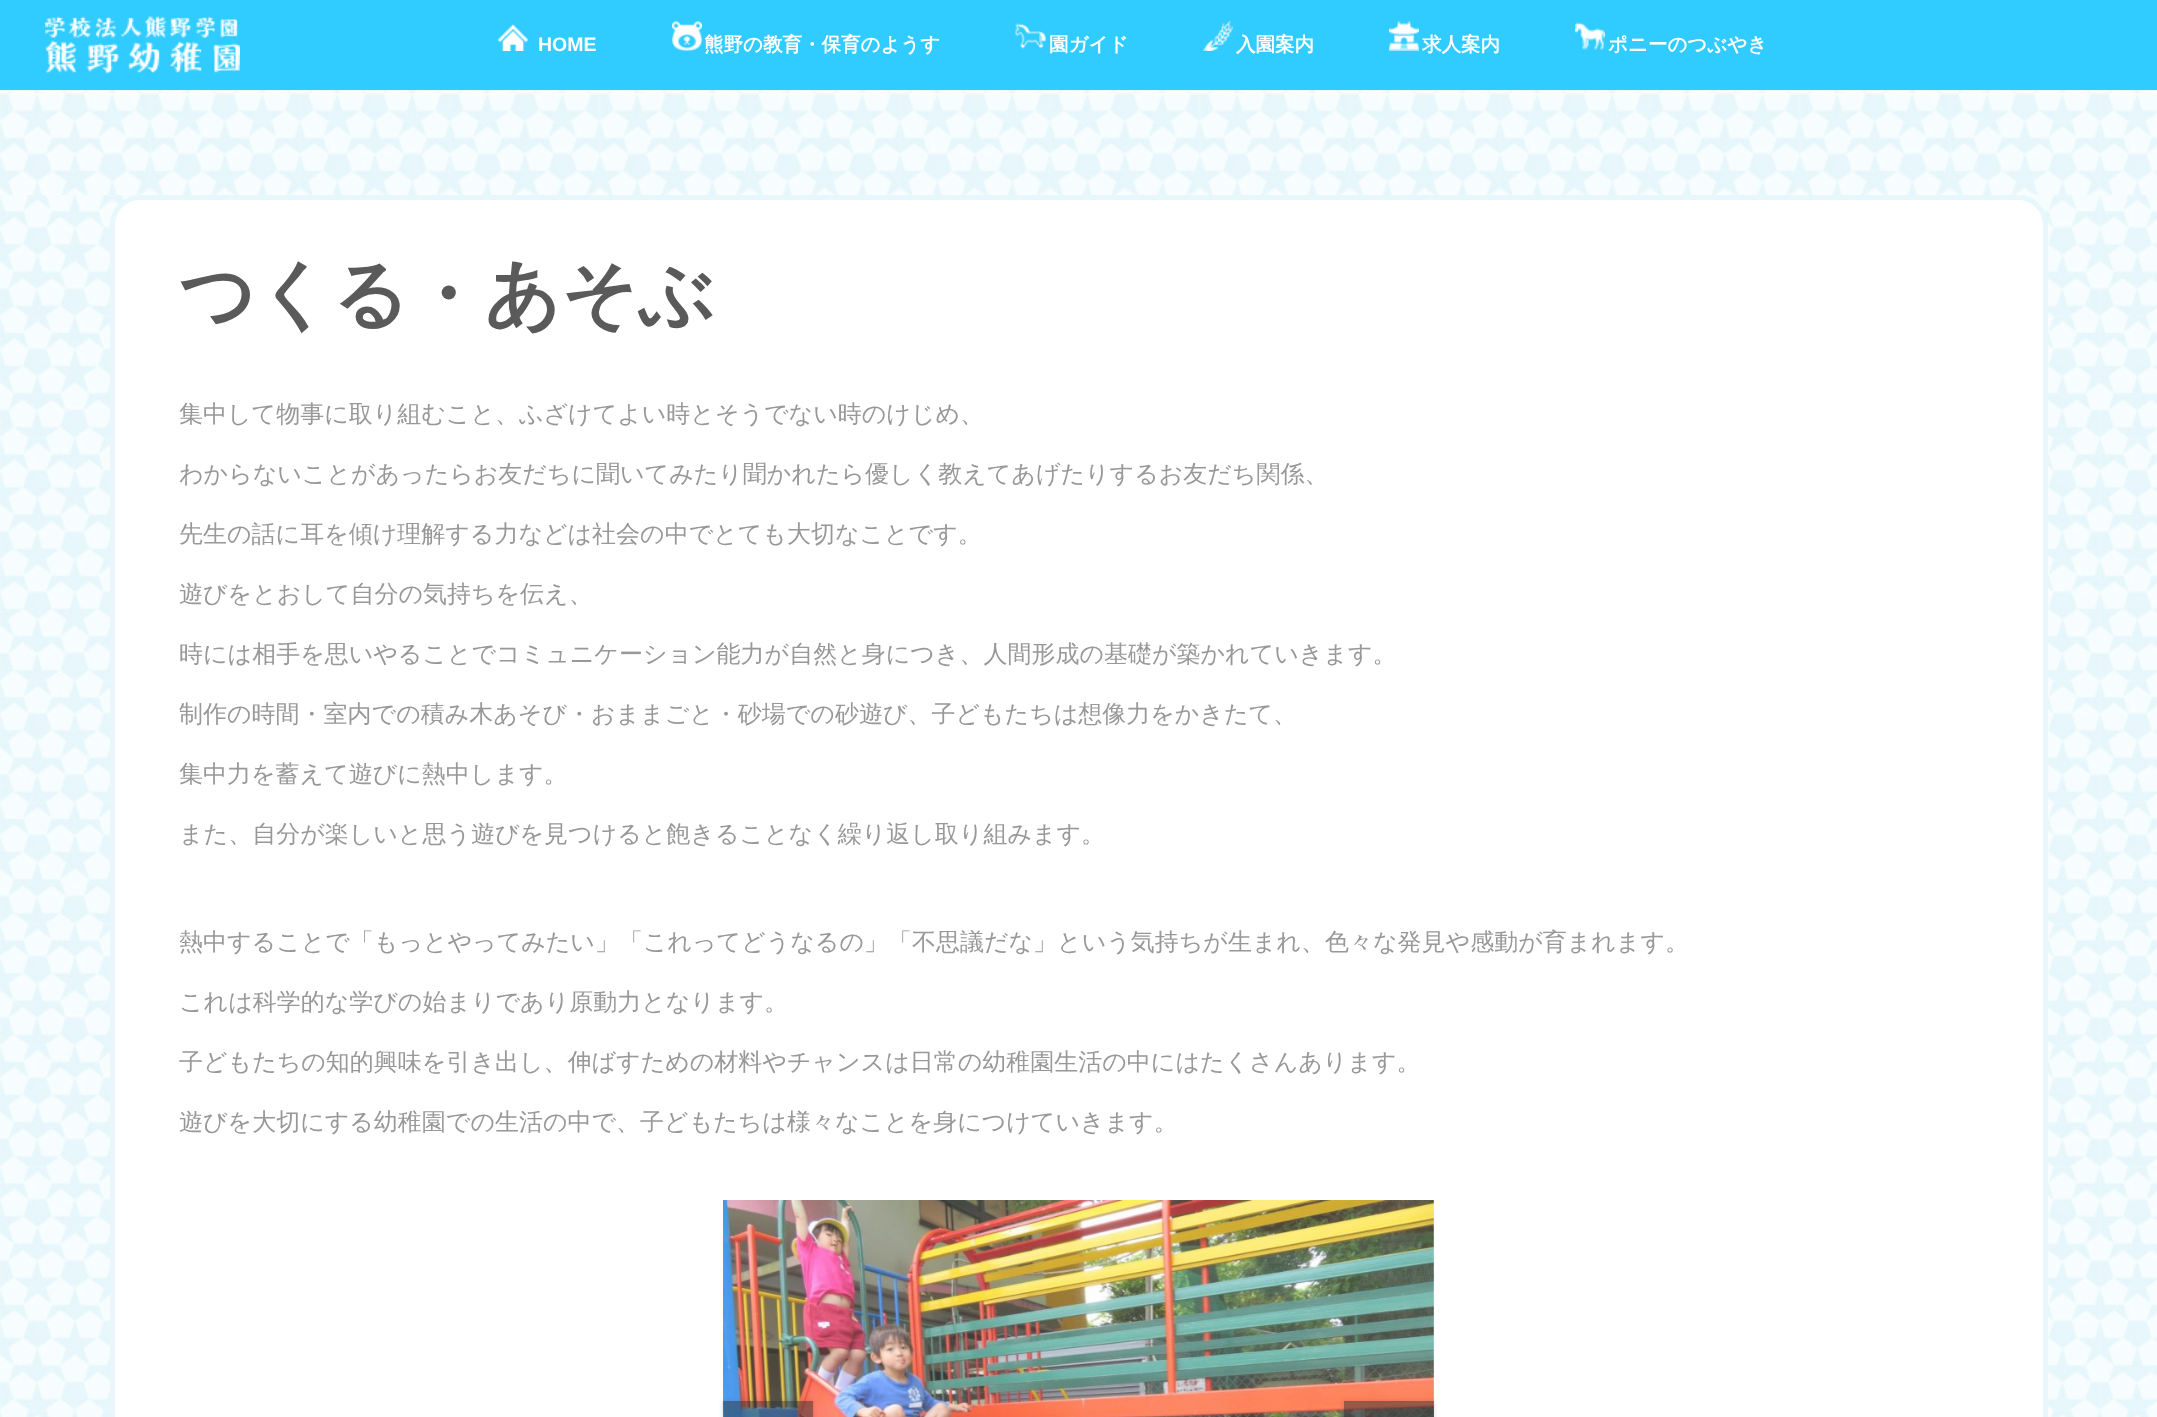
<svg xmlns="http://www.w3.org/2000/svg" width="2157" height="1417">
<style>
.a{font:bold 19.5px Liberation Sans;fill:#fff}
.b{font:bold 19.5px WenQuanYi Zen Hei;fill:#fff}
.c{font:bold 75px WenQuanYi Zen Hei;fill:#5a5a5a}
.d{font:500 24px WenQuanYi Zen Hei;fill:#989898}
</style>
<defs>
<clipPath id="clip1"><path d="M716 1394h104v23h-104zm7 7h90v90h-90z" clip-rule="evenodd"/></clipPath>
<clipPath id="clip2"><path d="M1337 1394h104v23h-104zm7 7h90v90h-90z" clip-rule="evenodd"/></clipPath>
</defs>
<rect width="100%" height="100%" fill="#fff"/>
<image href="1.png" x="0" y="90" width="2157" height="105"/>
<path fill="#30cbff" d="M0 0h2157v90H0z"/>
<image href="2.png" x="45" y="16" width="195" height="58"/>
<image href="3.png" x="498" y="24" width="31" height="27"/>
<image href="4.png" x="672" y="21" width="30" height="30"/>
<image href="5.png" x="1015" y="23" width="31" height="26"/>
<image href="6.png" x="1203" y="21" width="30" height="30"/>
<image href="7.png" x="1389" y="21" width="30" height="30"/>
<image href="8.png" x="1575" y="22" width="30" height="28"/>
<image href="9.png" x="0" y="195" width="2157" height="1222"/>
<rect fill="#fff" stroke="#e8f7fc" stroke-width="5" x="112.5" y="197.5" width="1933" height="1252" rx="27.5"/>
<image href="10.png" x="723" y="1200" width="711" height="217"/>
<g clip-path="url(#clip1)">
<path fill="#30303033" filter="blur(2px)" d="M723 1401h90v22H723z"/>
</g>
<path fill="#30303080" d="M723 1401h90v16H723z"/>
<g clip-path="url(#clip2)">
<path fill="#30303033" filter="blur(2px)" d="M1344 1401h90v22H1344z"/>
</g>
<path fill="#30303080" d="M1344 1401h90v16H1344z"/>
<text class="a" x="538" y="51">HOME</text>
<text class="b" x="704" y="51">熊野の教育・保育のようす</text>
<text class="b" x="1049" y="51">園ガイド</text>
<text class="b" x="1236" y="51">入園案内</text>
<text class="b" x="1422" y="51">求人案内</text>
<text class="b" x="1608" y="51">ポニーのつぶやき</text>
<text class="c" x="179" y="320">つくる・あそぶ</text>
<text class="d" x="179" y="422">集中して物事に取り組むこと、ふざけてよい時とそうでない時のけじめ、</text>
<text class="d" x="179" y="482">わからないことがあったらお友だちに聞いてみたり聞かれたら優しく教えてあげたりするお友だち関係、</text>
<text class="d" x="179" y="542">先生の話に耳を傾け理解する力などは社会の中でとても大切なことです。</text>
<text class="d" x="179" y="602">遊びをとおして自分の気持ちを伝え、</text>
<text class="d" x="179" y="662">時には相手を思いやることでコミュニケーション能力が自然と身につき、人間形成の基礎が築かれていきます。</text>
<text class="d" x="179" y="722">制作の時間・室内での積み木あそび・おままごと・砂場での砂遊び、子どもたちは想像力をかきたて、</text>
<text class="d" x="179" y="782">集中力を蓄えて遊びに熱中します。</text>
<text class="d" x="179" y="842">また、自分が楽しいと思う遊びを見つけると飽きることなく繰り返し取り組みます。</text>
<text class="d" x="179" y="950">熱中することで「もっとやってみたい」「これってどうなるの」「不思議だな」という気持ちが生まれ、色々な発見や感動が育まれます。</text>
<text class="d" x="179" y="1010">これは科学的な学びの始まりであり原動力となります。</text>
<text class="d" x="179" y="1070">子どもたちの知的興味を引き出し、伸ばすための材料やチャンスは日常の幼稚園生活の中にはたくさんあります。</text>
<text class="d" x="179" y="1130">遊びを大切にする幼稚園での生活の中で、子どもたちは様々なことを身につけていきます。</text>
</svg>
